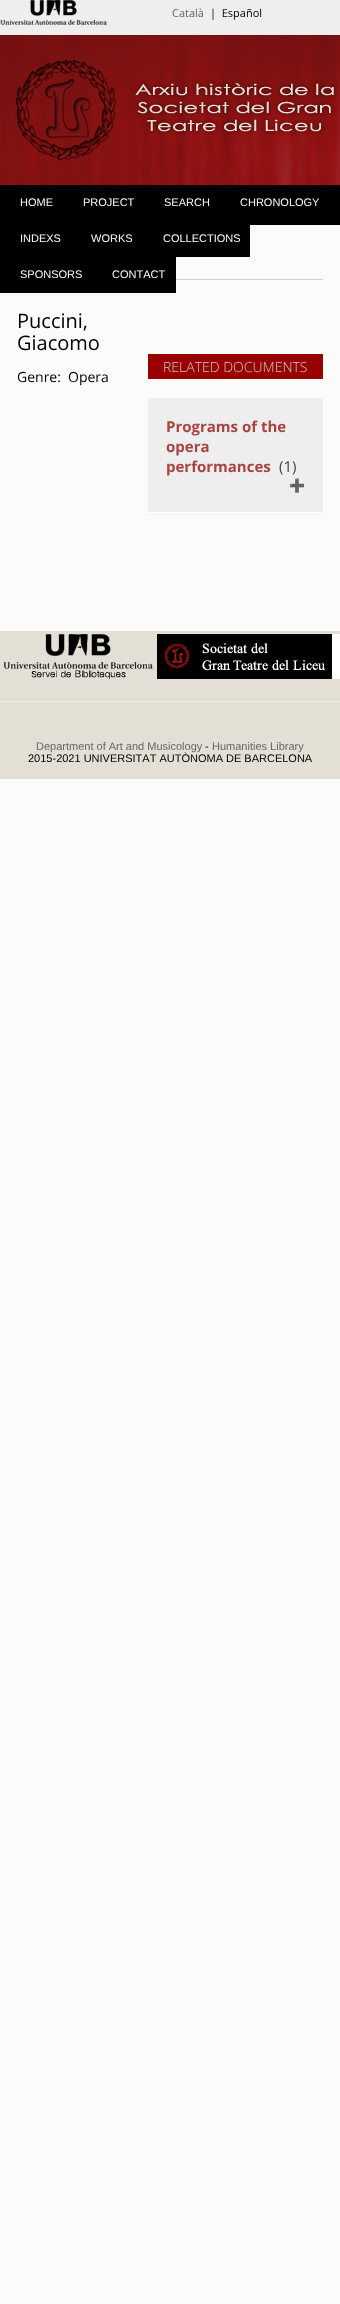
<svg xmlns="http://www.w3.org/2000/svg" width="340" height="2304">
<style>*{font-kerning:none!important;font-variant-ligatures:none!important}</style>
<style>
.a{font:11px Open Sans;fill:#666}
.b{font:11px Open Sans;fill:#000}
.c{font:11px Liberation Sans;fill:#fbfbf9}
.d{font:20px Open Sans;fill:#000}
.e{font:14px Open Sans;fill:#000}
.f{font:300 14px Open Sans;fill:#ccc}
.g{font:bold 15px Open Sans;fill:#a94442}
.h{font:15px Open Sans;fill:#444}
.i{font:13px Noto Color Emoji;fill:#777}
.j{font:11px Liberation Sans;fill:#666}
.k{font:11px Liberation Sans;fill:#000}
</style>
<rect width="100%" height="100%" fill="#fbfbf9"/>
<path fill="#eee" d="M0 0h340v35H0z"/>
<image href="1.png" x="0" y="0" width="107" height="25"/>
<path fill="#8c1515" d="M0 35h340v150H0z"/>
<image href="2.png" x="0" y="35" width="340" height="150"/>
<image href="3.png" x="16" y="60" width="321" height="100"/>
<path fill="#000" d="M0 185h340v40H0z"/>
<path fill="#000" d="M0 225h250v32H0z"/>
<path fill="#000" d="M0 257h176v36H0z"/>
<path fill="#cdd1d0" d="M176 279h147v1H176z"/>
<path fill="#900" d="M148 354h175v25H148z"/>
<path fill="#eee" d="M148 398h175v114H148z"/>
<rect fill="#0000000d" filter="blur(0.5px)" x="148" y="513" width="175" height="2" rx="1"/>
<rect fill="#fff" x="148" y="512" width="175" height="2" rx="1"/>
<path fill="#e3dfd5" d="M0 631h340v148H0z"/>
<image href="4.png" x="3" y="634" width="150" height="45"/>
<image href="5.png" x="157" y="634" width="175" height="45"/>
<path fill="#fff" d="M332 634h8v45H332z"/>
<path fill="#eee" d="M0 701h340v1H0z"/>
<text class="a" x="172" y="17">Català</text>
<text class="b" xml:space="preserve" x="210" y="17">|  Español</text>
<text class="c" x="20" y="206">HOME</text>
<text class="c" x="83" y="206">PROJECT</text>
<text class="c" x="164" y="206">SEARCH</text>
<text class="c" x="240" y="206">CHRONOLOGY</text>
<text class="c" x="20" y="242">INDEXS</text>
<text class="c" x="91" y="242">WORKS</text>
<text class="c" x="163" y="242">COLLECTIONS</text>
<text class="c" x="20" y="278">SPONSORS</text>
<text class="c" x="112" y="278">CONTACT</text>
<text class="d" x="17" y="328">Puccini,</text>
<text class="d" x="17" y="350">Giacomo</text>
<text class="e" x="17" y="382">Genre:</text>
<text class="e" x="68" y="382">Opera</text>
<text class="f" x="163" y="372">RELATED DOCUMENTS</text>
<text class="g" x="166" y="432">Programs of the</text>
<text class="g" x="166" y="452">opera</text>
<text class="g" x="166" y="472">performances</text>
<text class="h" x="279" y="472">(1)</text>
<text class="i" x="289" y="490">➕</text>
<text class="j" x="36" y="750">Department of Art and Musicology</text>
<text class="k" x="205" y="750">-</text>
<text class="j" x="212" y="750">Humanities Library</text>
<text class="k" x="28" y="762">2015-2021 UNIVERSITAT AUTÒNOMA</text>
<text class="k" x="226" y="762">DE BARCELONA</text>
</svg>
